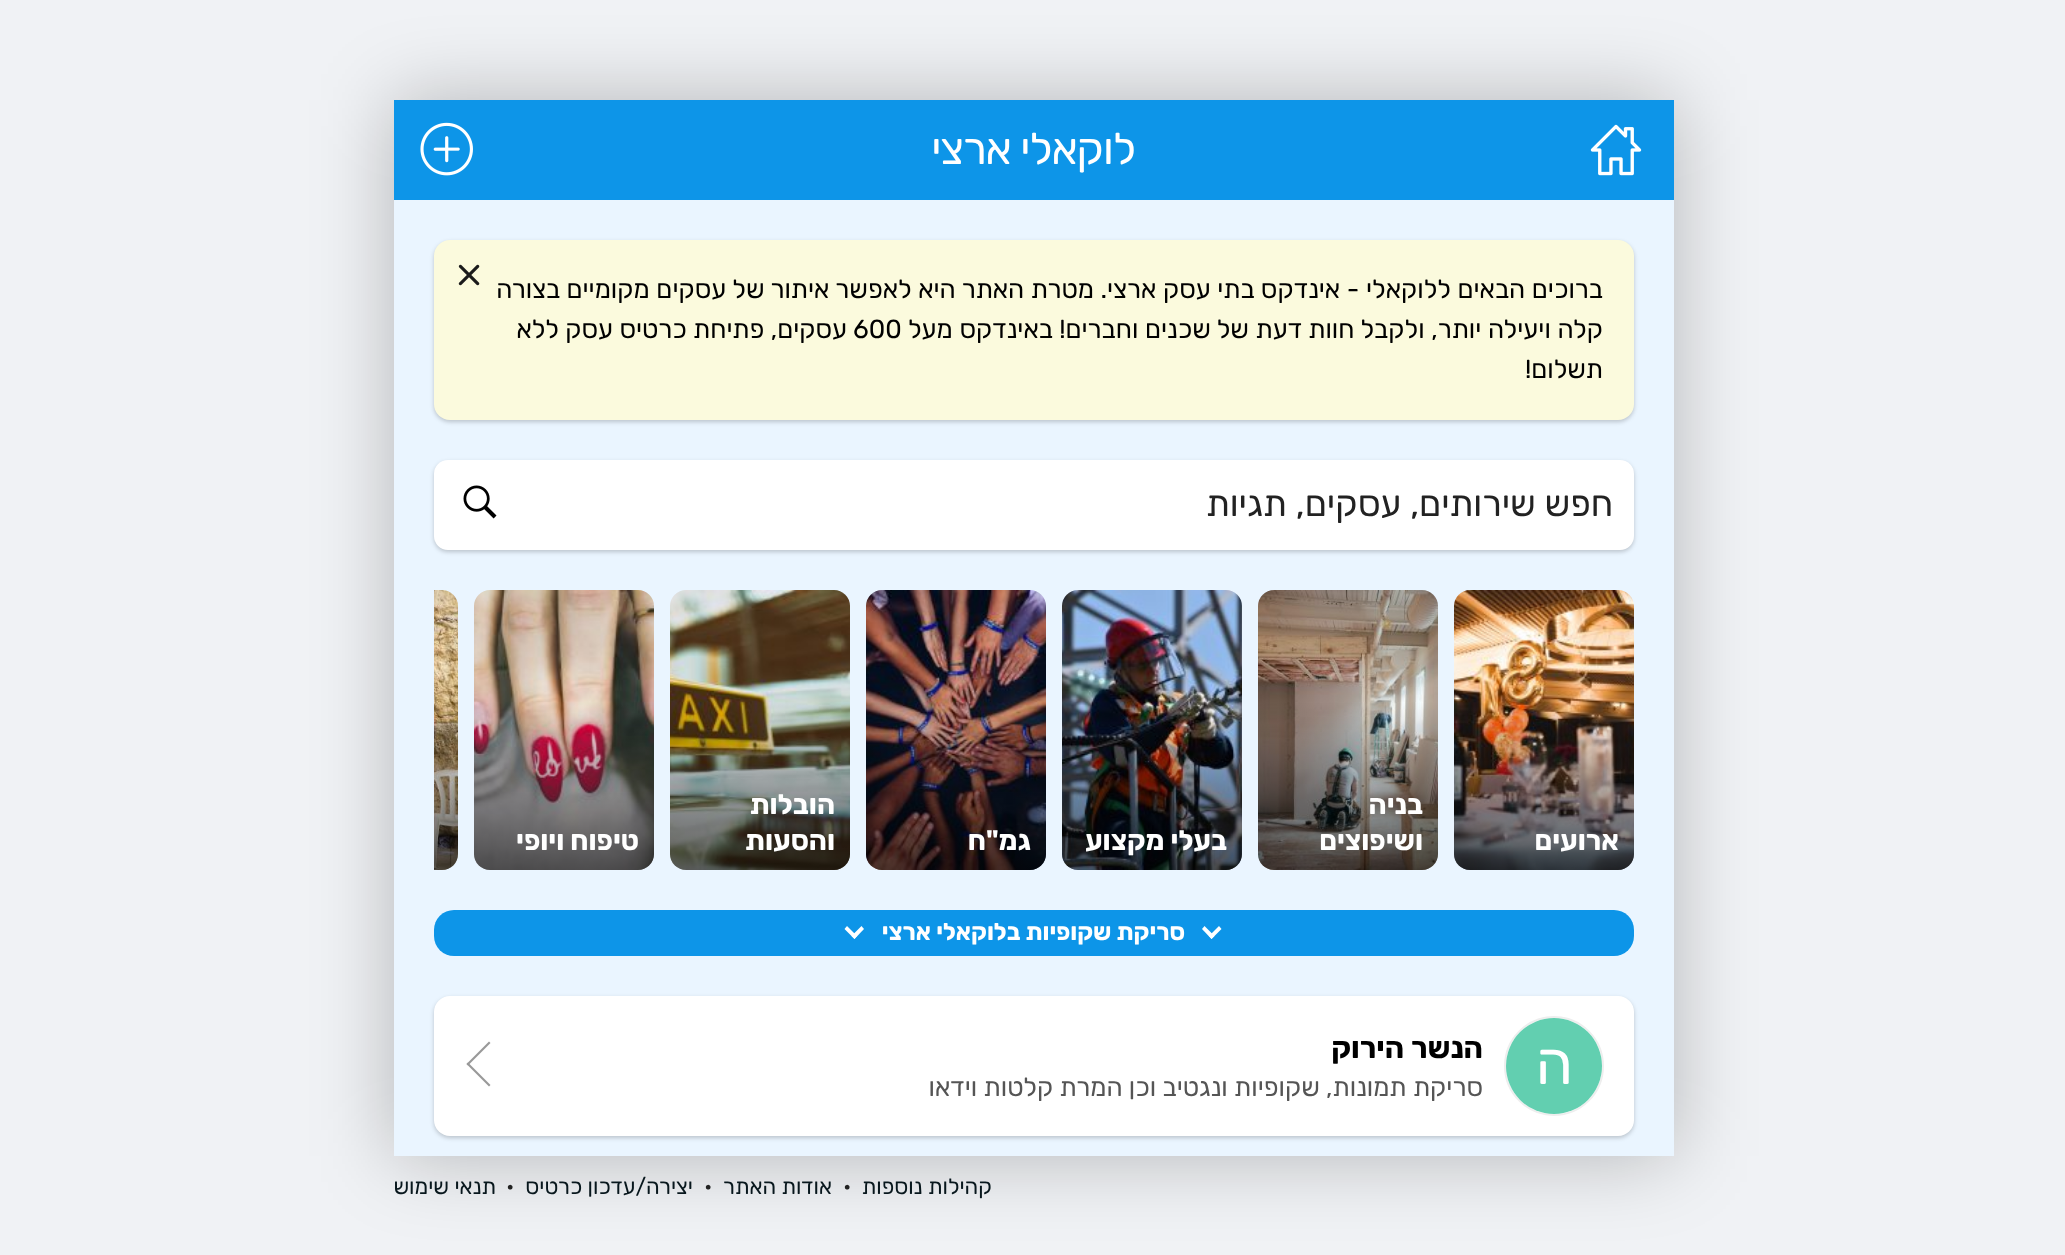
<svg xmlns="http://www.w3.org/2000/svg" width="2065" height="1255">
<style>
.a{font:44px Rubik;letter-spacing:-1px;direction:rtl;fill:#fff}
.b{font:26px Rubik;direction:rtl;fill:#000}
.c{font:26px Rubik;fill:#000}
.d{font:36px Rubik;direction:rtl;fill:#222}
.e{font:bold 28px Rubik;direction:rtl;fill:#fff}
.f{font:bold 24px Rubik;direction:rtl;fill:#fff}
.g{font:60px Rubik;direction:rtl;fill:#fff}
.h{font:bold 30px Rubik;direction:rtl;fill:#000}
.i{font:26px Rubik;direction:rtl;fill:#555}
.j{font:22px Rubik;direction:rtl;fill:#08171d}
.k{font:22px Rubik;fill:#222}
</style>
<defs>
<linearGradient id="g1" gradientUnits="userSpaceOnUse" x1="1544" y1="590" x2="1544" y2="870"><stop offset="0" stop-color="#000" stop-opacity="0"/><stop offset="0.4" stop-color="#000" stop-opacity="0"/><stop offset="1" stop-color="#000" stop-opacity="0.6"/></linearGradient>
<linearGradient id="g2" gradientUnits="userSpaceOnUse" x1="1348" y1="590" x2="1348" y2="870"><stop offset="0" stop-color="#000" stop-opacity="0"/><stop offset="0.4" stop-color="#000" stop-opacity="0"/><stop offset="1" stop-color="#000" stop-opacity="0.6"/></linearGradient>
<linearGradient id="g3" gradientUnits="userSpaceOnUse" x1="1152" y1="590" x2="1152" y2="870"><stop offset="0" stop-color="#000" stop-opacity="0"/><stop offset="0.4" stop-color="#000" stop-opacity="0"/><stop offset="1" stop-color="#000" stop-opacity="0.6"/></linearGradient>
<linearGradient id="g4" gradientUnits="userSpaceOnUse" x1="956" y1="590" x2="956" y2="870"><stop offset="0" stop-color="#000" stop-opacity="0"/><stop offset="0.4" stop-color="#000" stop-opacity="0"/><stop offset="1" stop-color="#000" stop-opacity="0.6"/></linearGradient>
<linearGradient id="g5" gradientUnits="userSpaceOnUse" x1="760" y1="590" x2="760" y2="870"><stop offset="0" stop-color="#000" stop-opacity="0"/><stop offset="0.4" stop-color="#000" stop-opacity="0"/><stop offset="1" stop-color="#000" stop-opacity="0.6"/></linearGradient>
<linearGradient id="g6" gradientUnits="userSpaceOnUse" x1="564" y1="590" x2="564" y2="870"><stop offset="0" stop-color="#000" stop-opacity="0"/><stop offset="0.4" stop-color="#000" stop-opacity="0"/><stop offset="1" stop-color="#000" stop-opacity="0.6"/></linearGradient>
<linearGradient id="g7" gradientUnits="userSpaceOnUse" x1="368" y1="590" x2="368" y2="870"><stop offset="0" stop-color="#000" stop-opacity="0"/><stop offset="0.4" stop-color="#000" stop-opacity="0"/><stop offset="1" stop-color="#000" stop-opacity="0.6"/></linearGradient>
</defs>
<rect width="100%" height="100%" fill="#f0f2f5"/>
<path fill="#00000040" filter="blur(40px)" d="M394 100h1280v1056H394z"/>
<path fill="#eaf5ff" d="M394 200h1280v956H394z"/>
<path fill="#0d95e8" d="M394 100h1280v100H394z"/>
<image href="1.png" x="1590" y="124" width="52" height="52"/>
<image href="2.png" x="420" y="122" width="53" height="54"/>
<rect fill="#00000033" filter="blur(2px)" x="434" y="242" width="1200" height="180" rx="16"/>
<rect fill="#fbfadd" x="434" y="240" width="1200" height="180" rx="16"/>
<image href="3.png" x="458" y="264" width="22" height="22"/>
<rect fill="#00000033" filter="blur(2px)" x="434" y="462" width="1200" height="90" rx="14"/>
<rect fill="#fff" x="434" y="460" width="1200" height="90" rx="14"/>
<image href="4.png" x="463" y="485" width="34" height="34"/>
<image href="5.png" x="1454" y="590" width="180" height="280"/>
<rect fill="url(#g1)" x="1454" y="590" width="180" height="280" rx="16"/>
<image href="6.png" x="1258" y="590" width="180" height="280"/>
<rect fill="url(#g2)" x="1258" y="590" width="180" height="280" rx="16"/>
<image href="7.png" x="1062" y="590" width="180" height="280"/>
<rect fill="url(#g3)" x="1062" y="590" width="180" height="280" rx="16"/>
<image href="8.png" x="866" y="590" width="180" height="280"/>
<rect fill="url(#g4)" x="866" y="590" width="180" height="280" rx="16"/>
<image href="9.png" x="670" y="590" width="180" height="280"/>
<rect fill="url(#g5)" x="670" y="590" width="180" height="280" rx="16"/>
<image href="10.png" x="474" y="590" width="180" height="280"/>
<rect fill="url(#g6)" x="474" y="590" width="180" height="280" rx="16"/>
<image href="11.png" x="434" y="590" width="24" height="280"/>
<path fill="url(#g7)" d="M434 590h8c9 0 16 7 16 16v248c0 9-7 16-16 16h-8z"/>
<rect fill="#0d95e8" x="434" y="910" width="1200" height="46" rx="20"/>
<path fill="#fff" d="M1219 926l2.5 3l-10 10l-2.5-3z"/>
<path fill="#fff" d="M1204.5 926l10 10l-3 3l-9.5-10z"/>
<path fill="#fff" d="M861.5 926l2.5 3l-9.5 10l-3-3z"/>
<path fill="#fff" d="M847 926l10 10l-2.5 3l-10-10z"/>
<rect fill="#00000033" filter="blur(2px)" x="434" y="998" width="1200" height="140" rx="16"/>
<rect fill="#fff" x="434" y="996" width="1200" height="140" rx="16"/>
<circle fill="none" stroke="#eee" stroke-width="2" cx="1554" cy="1066" r="49"/>
<circle fill="#62cfb0" cx="1554" cy="1066" r="48"/>
<path fill="#999" d="M490.5 1085l-1.5 1.5l-22.5-22.5l1.5-1.5z"/>
<path fill="#999" d="M490.5 1043l-22.5 22.5l-1.5-1.5l22.5-22.5z"/>
<text class="a" x="1135" y="164">לוקאלי ארצי</text>
<text class="b" x="1603" y="298" word-spacing="0.25">ברוכים הבאים ללוקאלי - אינדקס בתי עסק ארצי. מטרת האתר היא לאפשר איתור של עסקים מקומיים בצורה</text>
<text class="b" x="1603" y="338" word-spacing="0.25">קלה ויעילה יותר, ולקבל חוות דעת של שכנים וחברים! באינדקס מעל</text>
<text class="c" x="853" y="338">600</text>
<text class="b" x="847" y="338">עסקים, פתיחת כרטיס עסק ללא</text>
<text class="b" x="1603" y="378">תשלום!</text>
<text class="d" x="1613" y="516">חפש שירותים, עסקים, תגיות</text>
<text class="e" x="1619" y="850">ארועים</text>
<text class="e" x="1423" y="814">בניה</text>
<text class="e" x="1423" y="850">ושיפוצים</text>
<text class="e" x="1227" y="850">בעלי מקצוע</text>
<text class="e" x="1031" y="850">גמ"ח</text>
<text class="e" x="835" y="814">הובלות</text>
<text class="e" x="835" y="850">והסעות</text>
<text class="e" x="639" y="850">טיפוח ויופי</text>
<text class="f" x="1185" y="940">סריקת שקופיות בלוקאלי ארצי</text>
<text class="g" x="1573" y="1084">ה</text>
<text class="h" x="1483" y="1058" word-spacing="1">הנשר הירוק</text>
<text class="i" x="1483" y="1096">סריקת תמונות, שקופיות ונגטיב וכן המרת קלטות וידאו</text>
<text class="j" x="992" y="1194">קהילות נוספות</text>
<text class="k" x="843" y="1194">•</text>
<text class="j" x="832" y="1194">אודות האתר</text>
<text class="k" x="704" y="1194">•</text>
<text class="j" x="693" y="1194">יצירה/עדכון כרטיס</text>
<text class="k" x="506" y="1194">•</text>
<text class="j" x="496" y="1194">תנאי שימוש</text>
</svg>
